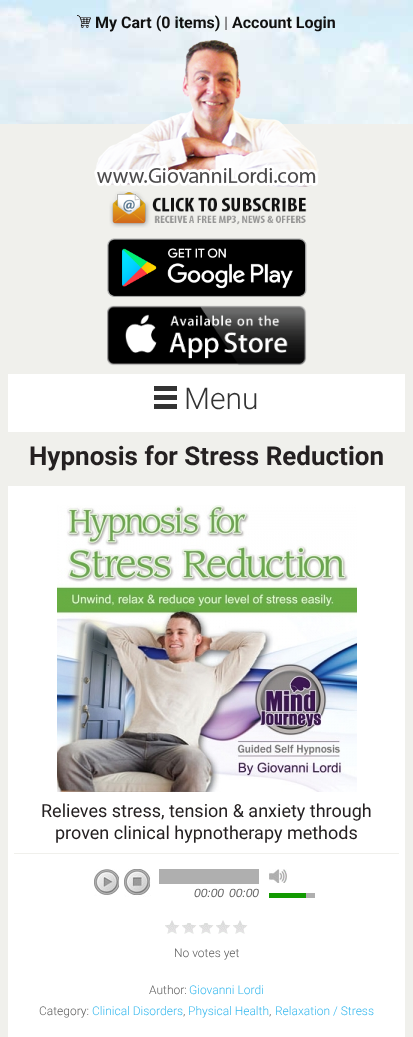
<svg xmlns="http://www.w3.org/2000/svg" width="413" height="1037">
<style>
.a{font:bold 16px Roboto;fill:#111}
.b{font:bold 16px Roboto;fill:#606060}
.c{font:300 30px Roboto;fill:#333}
.d{font:bold 26px Roboto;fill:#242021}
.e{font:18px Roboto;fill:#242021}
.f{font:italic 12px Liberation Sans;fill:#666}
.g{font:300 12px Roboto;fill:#606060}
.h{font:300 12px Roboto;fill:#39b9ee}
</style>
<rect width="100%" height="100%" fill="#f0f0ec"/>
<image href="1.png" x="0" y="0" width="413" height="124"/>
<image href="2.png" x="77" y="15" width="14" height="13"/>
<image href="3.png" x="94" y="40" width="225" height="147"/>
<image href="4.png" x="109" y="191" width="198" height="37"/>
<image href="5.png" x="107" y="238" width="200" height="59"/>
<image href="6.png" x="107" y="305" width="200" height="61"/>
<path fill="#fff" d="M8 374h397v58H8z"/>
<image href="7.png" x="154" y="386" width="23" height="23"/>
<path fill="#fff" d="M8 486h397v551H8z"/>
<image href="8.png" x="57" y="505" width="300" height="287"/>
<path fill="#f0f0ec" d="M14 853h385v1H14z"/>
<image href="9.png" x="94" y="869" width="26" height="27"/>
<image href="10.png" x="124" y="869" width="27" height="28"/>
<image href="11.png" x="269" y="869" width="18" height="14"/>
<path fill="#afafaf" d="M159 869h100v15H159z"/>
<path fill="#afafaf" d="M306 893h9v5H306z"/>
<path fill="#129a01" d="M269 893h37v5H269z"/>
<image href="12.png" x="165" y="920" width="15" height="14"/>
<image href="13.png" x="182" y="923" width="15" height="11"/>
<image href="13.png" x="199" y="923" width="15" height="11"/>
<image href="12.png" x="216" y="920" width="15" height="14"/>
<image href="12.png" x="233" y="920" width="15" height="14"/>
<text class="a" x="95" y="28">My Cart (0 items)</text>
<text class="b" x="224" y="28">|</text>
<text class="a" x="232" y="28">Account Login</text>
<text class="c" x="184" y="409">Menu</text>
<text class="d" x="29" y="465">Hypnosis for Stress Reduction</text>
<text class="e" x="41" y="817">Relieves stress, tension &amp; anxiety through</text>
<text class="e" x="55" y="839">proven clinical hypnotherapy methods</text>
<text class="f" x="194" y="897">00:00</text>
<text class="f" x="229" y="897">00:00</text>
<text class="g" x="174" y="957">No votes yet</text>
<text class="g" x="149" y="994">Author:</text>
<text class="h" x="189" y="994">Giovanni Lordi</text>
<text class="g" x="39" y="1015">Category:</text>
<text class="h" x="92" y="1015">Clinical Disorders</text>
<text class="g" x="183" y="1015">,</text>
<text class="h" x="188" y="1015">Physical Health</text>
<text class="g" x="269" y="1015">,</text>
<text class="h" x="275" y="1015">Relaxation / Stress</text>
</svg>
